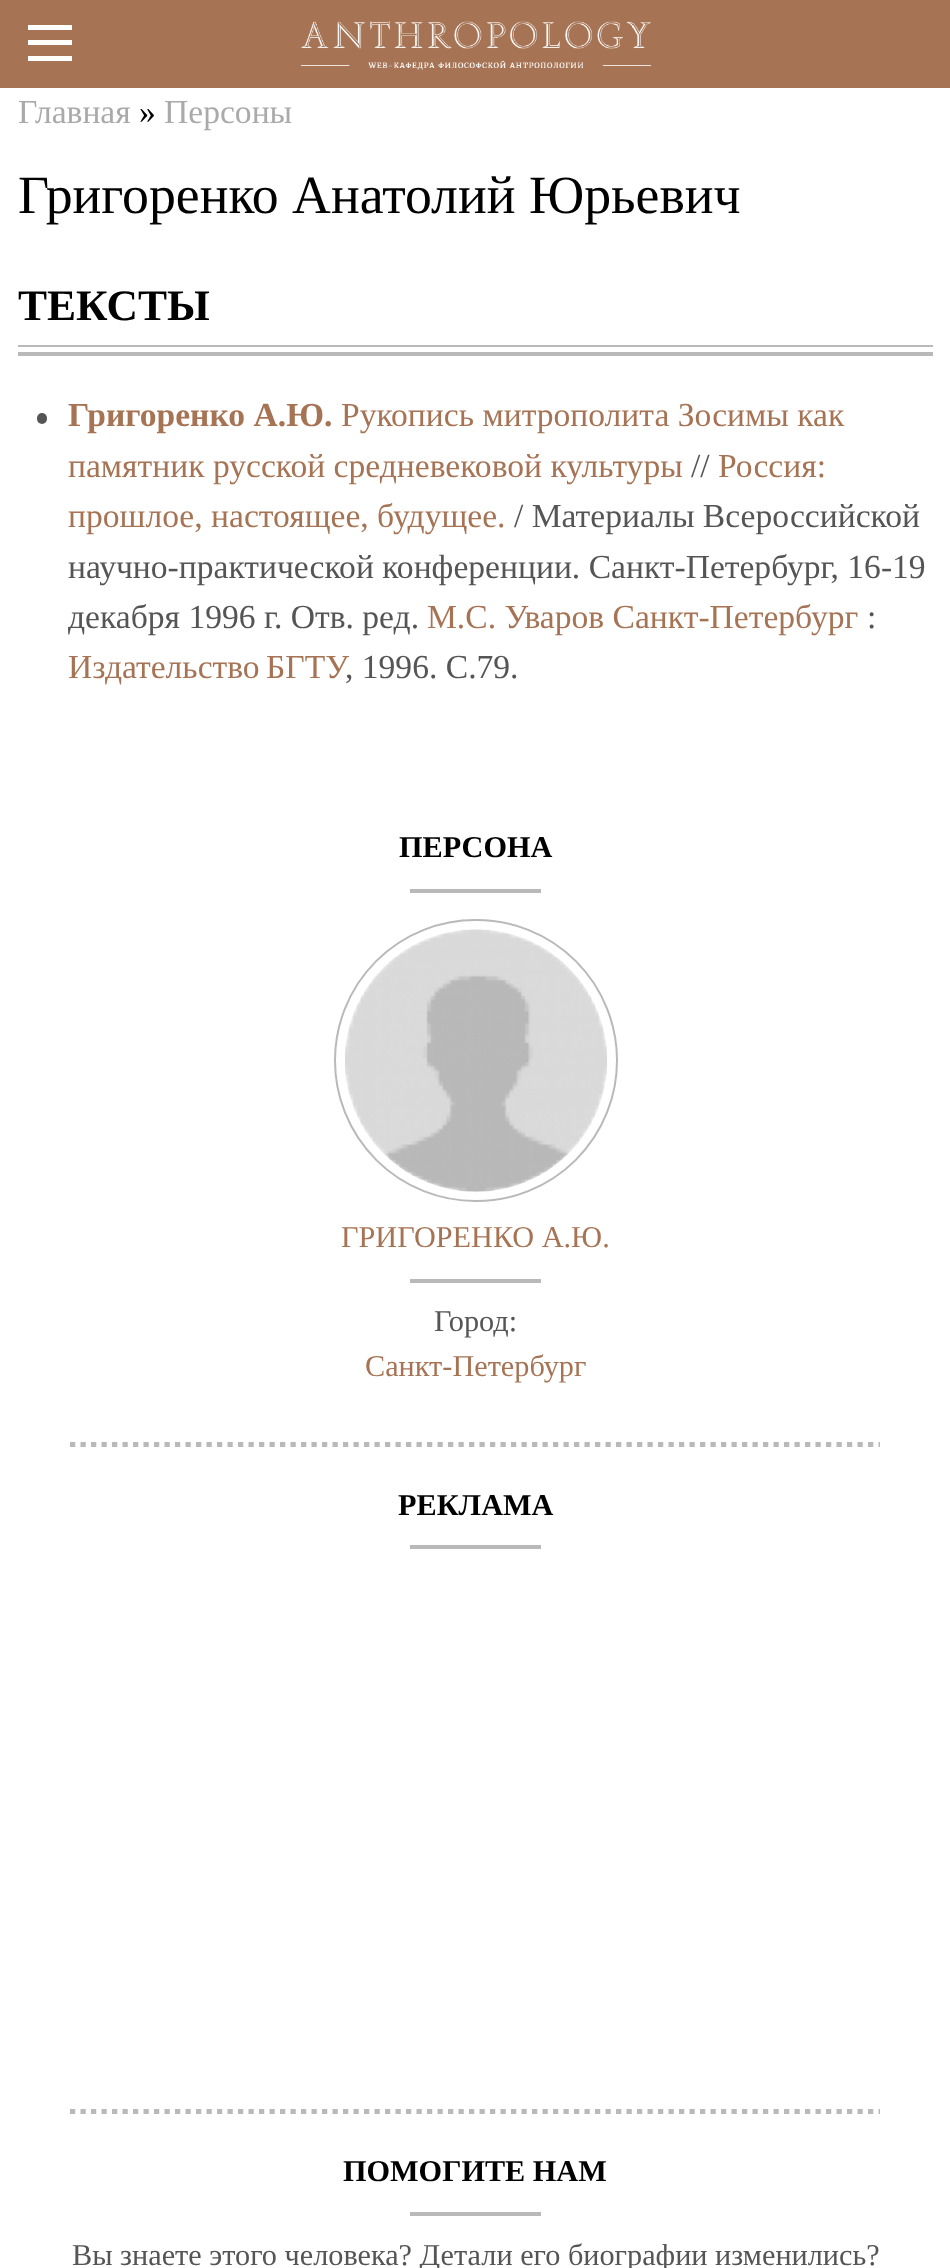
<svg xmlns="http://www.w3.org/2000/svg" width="950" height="2268">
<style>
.a{font:33.6px Liberation Serif;fill:#aaa}
.b{font:33.6px Liberation Serif;fill:#000}
.c{font:53.75px Liberation Serif;fill:#000}
.d{font:bold 43.5px Liberation Serif;fill:#000}
.e{font:bold 33.6px Liberation Serif;fill:#a67455}
.f{font:33.6px Liberation Serif;fill:#a67455}
.g{font:33.6px Liberation Serif;fill:#555}
.h{font:bold 30.25px Liberation Serif;fill:#000}
.i{font:30.25px Liberation Serif;fill:#a67455}
.j{font:30.25px Liberation Serif;fill:#555}
</style>
<rect width="100%" height="100%" fill="#fff"/>
<path fill="#a67455" d="M0 0h950v88H0z"/>
<image href="1.png" x="300" y="21" width="351" height="49"/>
<path fill="#fff" d="M28 25h44v5H28z"/>
<path fill="#fff" d="M28 40h44v5H28z"/>
<path fill="#fff" d="M28 56h44v5H28z"/>
<path fill="#b9b9b9" d="M18 352h915v4H18z"/>
<path fill="#b9b9b9" d="M18 345h915v2H18z"/>
<rect fill="#555" x="37" y="413" width="10" height="11" rx="5"/>
<path fill="none" stroke="#b9b9b9" stroke-width="5.2" stroke-dasharray="5.25 5.25" d="M70 1444.5h810"/>
<path fill="#b9b9b9" d="M410 889h131v4H410z"/>
<rect fill="none" stroke="#b9b9b9" stroke-width="2" x="335" y="920" width="282" height="281" rx="140.5"/>
<image href="2.png" x="345" y="929" width="262" height="263"/>
<path fill="#b9b9b9" d="M410 1279h131v4H410z"/>
<path fill="none" stroke="#b9b9b9" stroke-width="5.2" stroke-dasharray="5.25 5.25" d="M70 2111.5h810"/>
<path fill="#b9b9b9" d="M410 1545h131v4H410z"/>
<path fill="#b9b9b9" d="M410 2212h131v4H410z"/>
<text class="a" x="18" y="123">Главная</text>
<text class="b" x="139" y="123">»</text>
<text class="a" x="164" y="123">Персоны</text>
<text class="c" x="18" y="213">Григоренко Анатолий Юрьевич</text>
<text class="d" x="18" y="320">ТЕКСТЫ</text>
<text class="e" x="68" y="426">Григоренко А.Ю.</text>
<text class="f" x="341" y="426">Рукопись митрополита Зосимы как</text>
<text class="f" x="68" y="477">памятник русской средневековой культуры</text>
<text class="g" x="691" y="477">//</text>
<text class="f" x="718" y="477">Россия:</text>
<text class="f" x="68" y="527">прошлое, настоящее, будущее.</text>
<text class="g" x="514" y="527">/ Материалы Всероссийской</text>
<text class="g" x="68" y="578">научно-практической конференции. Санкт-Петербург, 16-19</text>
<text class="g" x="68" y="628">декабря 1996 г. Отв. ред.</text>
<text class="f" x="427" y="628">М.С. Уваров Санкт-Петербург</text>
<text class="g" x="867" y="628">:</text>
<text class="f" x="68" y="678" word-spacing="-2">Издательство БГТУ</text>
<text class="g" x="345" y="678">, 1996. C.79.</text>
<text class="h" x="399" y="857">ПЕРСОНА</text>
<text class="i" x="341" y="1247">ГРИГОРЕНКО А.Ю.</text>
<text class="j" x="434" y="1331">Город:</text>
<text class="i" x="365" y="1376">Санкт-Петербург</text>
<text class="h" x="398" y="1515">РЕКЛАМА</text>
<text class="h" x="343" y="2181">ПОМОГИТЕ НАМ</text>
<text class="j" x="72" y="2265">Вы знаете этого человека? Детали его биографии изменились?</text>
</svg>
